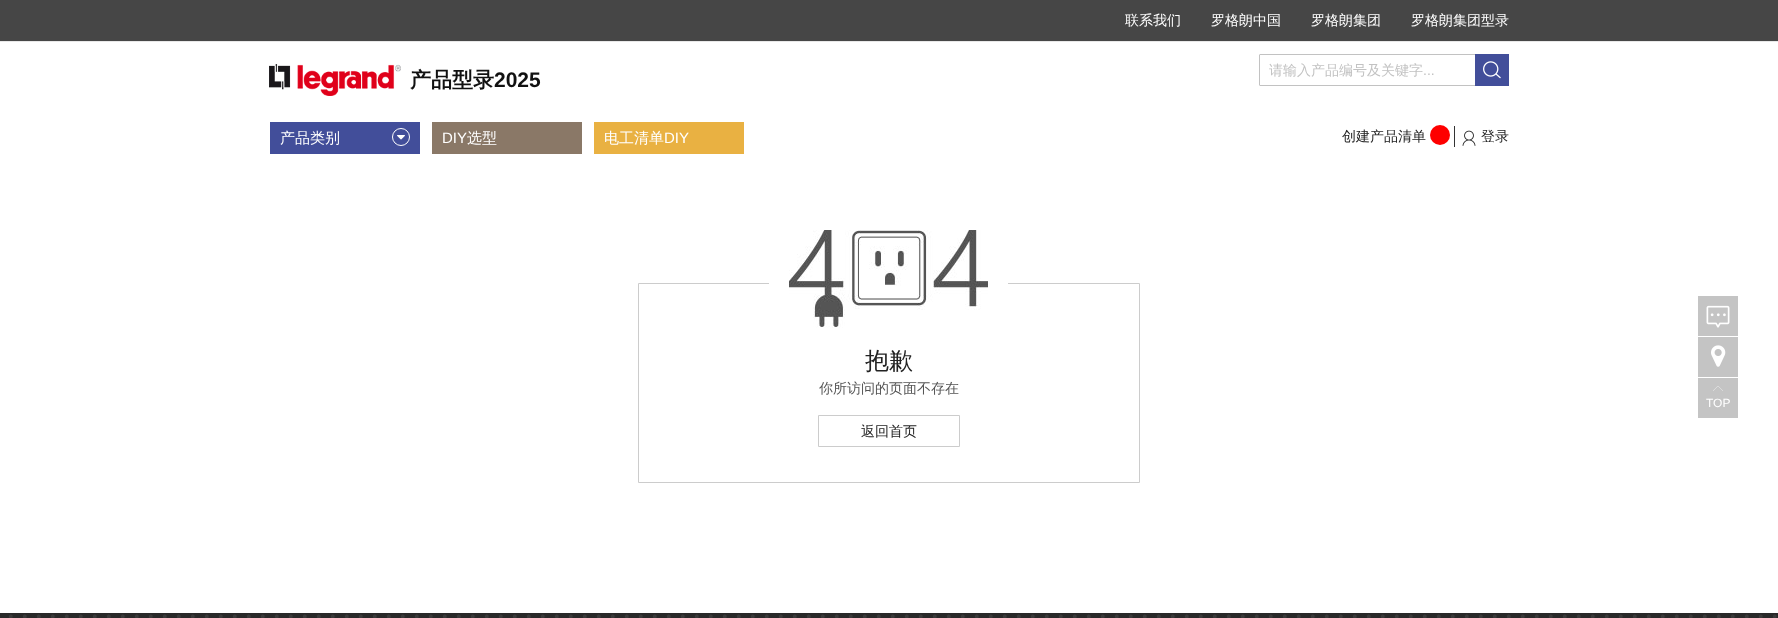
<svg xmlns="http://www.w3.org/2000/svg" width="1778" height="618">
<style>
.a{font:500 14px WenQuanYi Zen Hei;fill:#fff}
.b{font:bold 21px WenQuanYi Zen Hei;fill:#111}
.c{font:bold 21px Liberation Sans;fill:#111}
.d{font:500 14px WenQuanYi Zen Hei;fill:#c2c2c2}
.e{font:14px Liberation Sans;fill:#c2c2c2}
.f{font:500 15px WenQuanYi Zen Hei;fill:#fff}
.g{font:15px Liberation Sans;fill:#fff}
.h{font:500 14px WenQuanYi Zen Hei;fill:#222}
.i{font:500 24px WenQuanYi Zen Hei;fill:#222}
.j{font:500 14px WenQuanYi Zen Hei;fill:#555}
.k{font:12px Liberation Sans;fill:#fff}
</style>
<rect width="100%" height="100%" fill="#fff"/>
<path fill="#464646" d="M0 0h1778v41H0z"/>
<path fill="#e8e8e8" d="M0 41h1778v1H0z"/>
<image href="1.png" x="269" y="64" width="132" height="32"/>
<rect fill="none" stroke="#c2c2c2" x="1259.5" y="54.5" width="249" height="31" rx="0.5"/>
<path fill="#424e9a" d="M1475 54h34v32H1475z"/>
<image href="2.png" x="1483" y="61" width="18" height="18"/>
<path fill="#424e9a" d="M270 122h150v32H270z"/>
<circle fill="none" stroke="#fff" cx="401" cy="137" r="8.5"/>
<image href="3.png" x="397" y="135" width="8" height="5"/>
<path fill="#8a7867" d="M432 122h150v32H432z"/>
<path fill="#e9b142" d="M594 122h150v32H594z"/>
<circle fill="#fe0000" cx="1440" cy="135" r="10"/>
<path fill="#333" d="M1454 126h1v21H1454z"/>
<image href="4.png" x="1462" y="130" width="14" height="16"/>
<path fill="none" stroke="#ccc" d="M638.5 283.5h501v199H638.5z"/>
<path fill="#fff" d="M769 283h239v1H769z"/>
<image href="5.png" x="789" y="230" width="199" height="98"/>
<path fill="none" stroke="#ccc" d="M818.5 415.5h141v31H818.5z"/>
<image href="6.png" x="0" y="613" width="1778" height="5"/>
<path fill="#c4c4c4" d="M1698 296h40v40H1698z"/>
<image href="7.png" x="1706" y="305" width="24" height="23"/>
<path fill="#c4c4c4" d="M1698 337h40v40H1698z"/>
<image href="8.png" x="1711" y="345" width="15" height="22"/>
<path fill="#c4c4c4" d="M1698 378h40v40H1698z"/>
<image href="9.png" x="1713" y="386" width="10" height="5"/>
<text class="a" x="1125" y="25">联系我们</text>
<text class="a" x="1211" y="25">罗格朗中国</text>
<text class="a" x="1311" y="25">罗格朗集团</text>
<text class="a" x="1411" y="25">罗格朗集团型录</text>
<text class="b" x="410" y="87">产品型录</text>
<text class="c" x="494" y="87">2025</text>
<text class="d" x="1269" y="75">请输入产品编号及关键字</text>
<text class="e" x="1423" y="75">...</text>
<text class="f" x="280" y="143">产品类别</text>
<text class="g" x="442" y="143">DIY</text>
<text class="f" x="467" y="143">选型</text>
<text class="f" x="604" y="143">电工清单</text>
<text class="g" x="664" y="143">DIY</text>
<text class="h" x="1342" y="141">创建产品清单</text>
<text class="h" x="1481" y="141">登录</text>
<text class="i" x="865" y="369">抱歉</text>
<text class="j" x="819" y="393">你所访问的页面不存在</text>
<text class="h" x="861" y="436">返回首页</text>
<text class="k" x="1706" y="407">TOP</text>
</svg>
